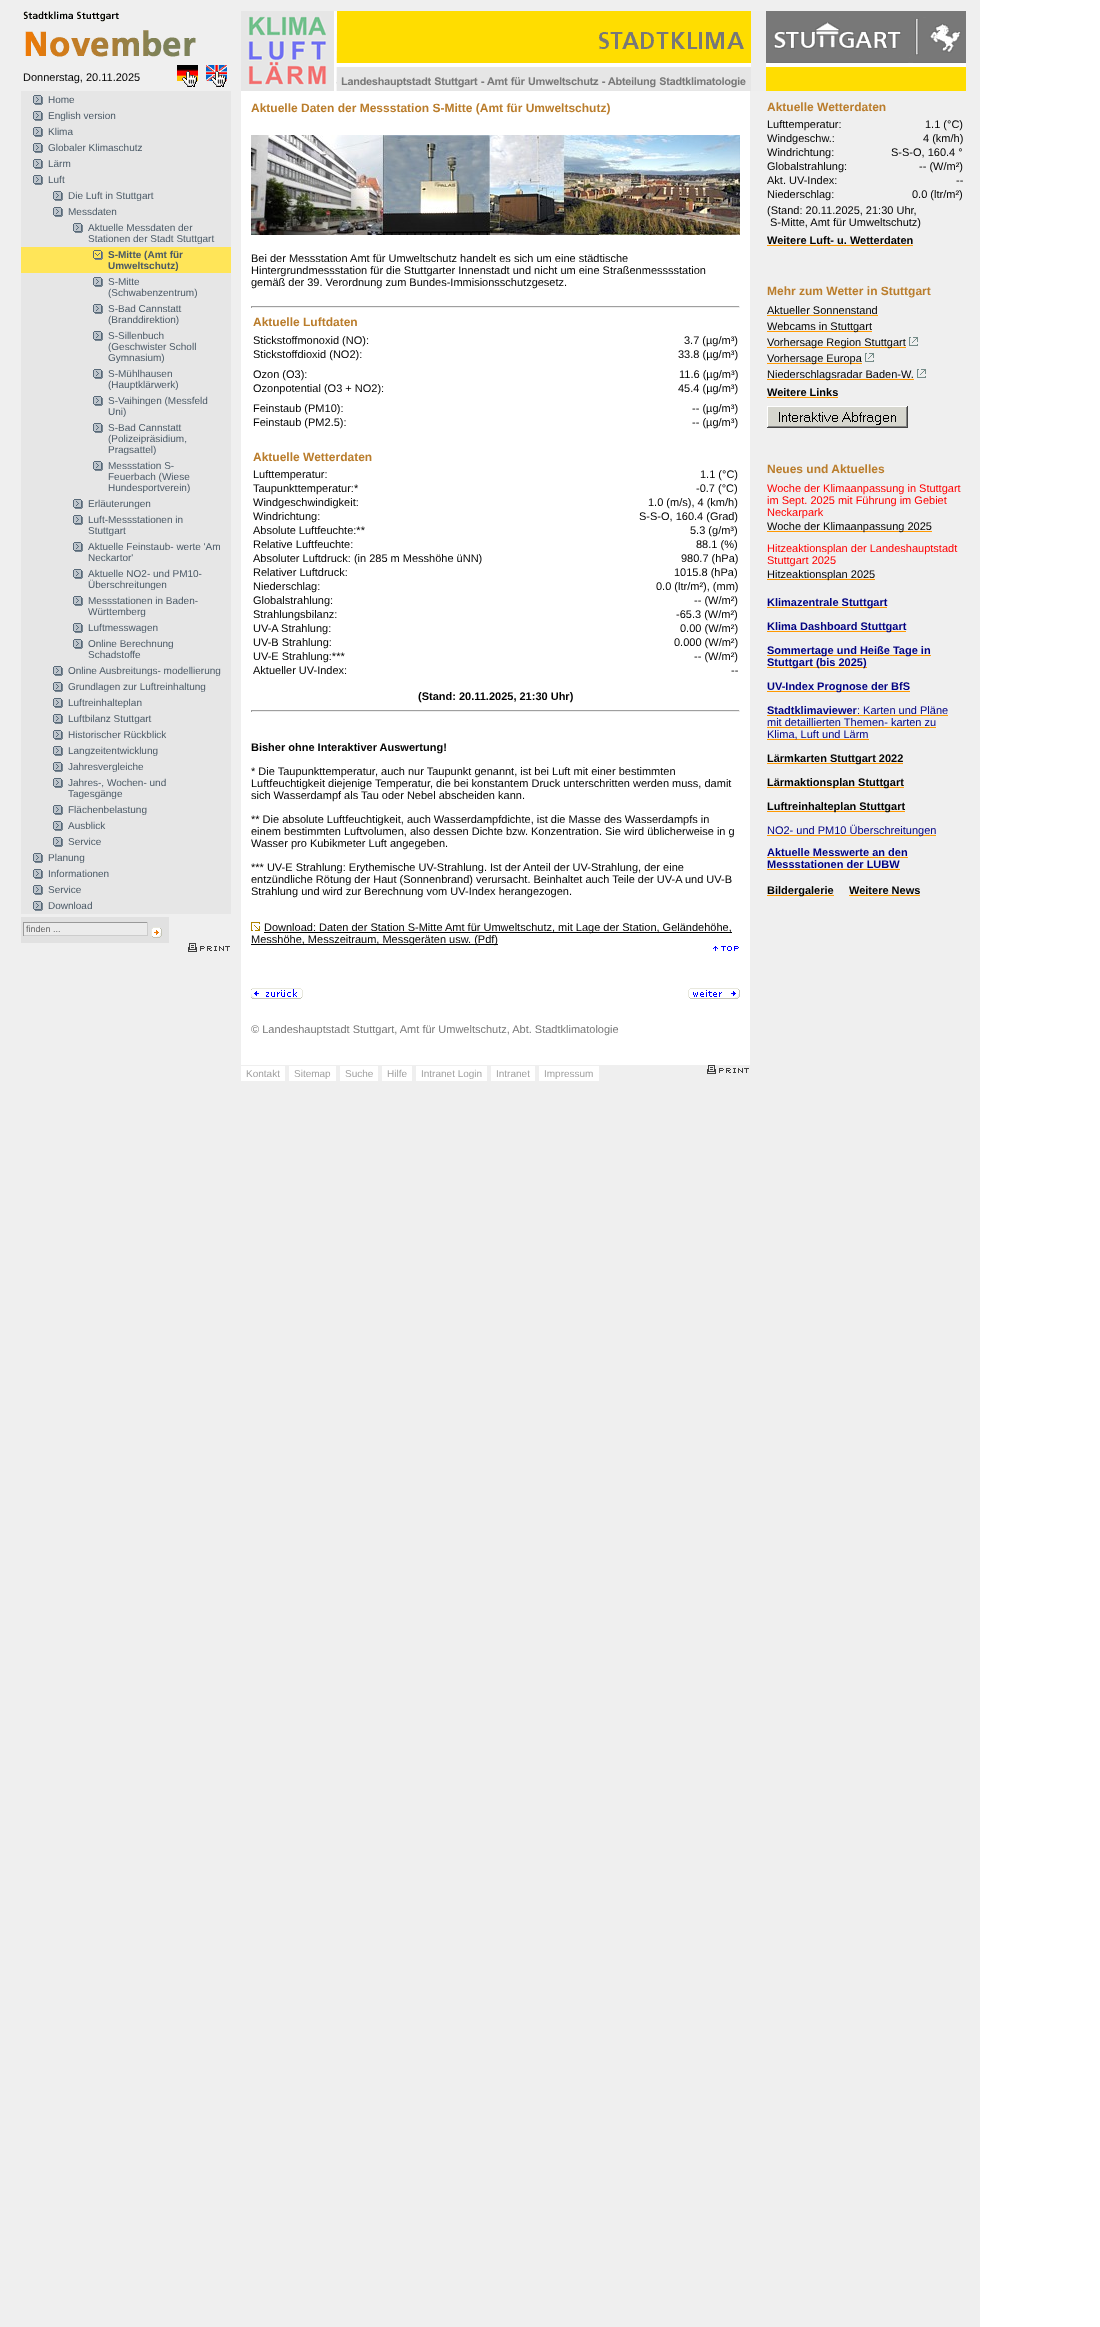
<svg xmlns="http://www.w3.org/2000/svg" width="1100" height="2327">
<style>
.a{font:11px Liberation Sans;fill:#000}
.b{font:10px Liberation Sans;fill:#4a5966}
.c{font:bold 10px Liberation Sans;fill:#4a5966}
.d{font:9px Liberation Sans;fill:#666}
.e{font:bold 12px Liberation Sans;fill:#ba7d2c}
.f{font:bold 11px Liberation Sans;fill:#000}
.g{font:11px Liberation Sans;fill:#787878}
.h{font:10px Liberation Sans;fill:#a0a0a0}
.i{font:11px Liberation Sans;fill:#f00}
.j{font:bold 11px Liberation Sans;fill:#000080}
.k{font:11px Liberation Sans;fill:#000080}
</style>
<rect width="100%" height="100%" fill="#fff"/>
<path fill="#efefef" d="M0 0h980v2327H0z"/>
<image href="1.png" x="23" y="11" width="173" height="46"/>
<image href="2.png" x="177" y="65" width="21" height="22"/>
<image href="3.png" x="206" y="65" width="21" height="22"/>
<image href="4.png" x="241" y="11" width="725" height="80"/>
<path fill="#e6e6e6" d="M21 91h210v156H21z"/>
<image href="5.png" x="33" y="95" width="10" height="10"/>
<image href="5.png" x="33" y="111" width="10" height="10"/>
<image href="5.png" x="33" y="127" width="10" height="10"/>
<image href="5.png" x="33" y="143" width="10" height="10"/>
<image href="5.png" x="33" y="159" width="10" height="10"/>
<image href="5.png" x="33" y="175" width="10" height="10"/>
<image href="5.png" x="53" y="191" width="10" height="10"/>
<image href="5.png" x="53" y="207" width="10" height="10"/>
<image href="5.png" x="73" y="223" width="10" height="10"/>
<path fill="#ffe558" d="M21 247h210v26H21z"/>
<image href="6.png" x="93" y="250" width="10" height="10"/>
<path fill="#e6e6e6" d="M21 273h210v641H21z"/>
<image href="5.png" x="93" y="277" width="10" height="10"/>
<image href="5.png" x="93" y="304" width="10" height="10"/>
<image href="5.png" x="93" y="331" width="10" height="10"/>
<image href="5.png" x="93" y="369" width="10" height="10"/>
<image href="5.png" x="93" y="396" width="10" height="10"/>
<image href="5.png" x="93" y="423" width="10" height="10"/>
<image href="5.png" x="93" y="461" width="10" height="10"/>
<image href="5.png" x="73" y="499" width="10" height="10"/>
<image href="5.png" x="73" y="515" width="10" height="10"/>
<image href="5.png" x="73" y="542" width="10" height="10"/>
<image href="5.png" x="73" y="569" width="10" height="10"/>
<image href="5.png" x="73" y="596" width="10" height="10"/>
<image href="5.png" x="73" y="623" width="10" height="10"/>
<image href="5.png" x="73" y="639" width="10" height="10"/>
<image href="5.png" x="53" y="666" width="10" height="10"/>
<image href="5.png" x="53" y="682" width="10" height="10"/>
<image href="5.png" x="53" y="698" width="10" height="10"/>
<image href="5.png" x="53" y="714" width="10" height="10"/>
<image href="5.png" x="53" y="730" width="10" height="10"/>
<image href="5.png" x="53" y="746" width="10" height="10"/>
<image href="5.png" x="53" y="762" width="10" height="10"/>
<image href="5.png" x="53" y="778" width="10" height="10"/>
<image href="5.png" x="53" y="805" width="10" height="10"/>
<image href="5.png" x="53" y="821" width="10" height="10"/>
<image href="5.png" x="53" y="837" width="10" height="10"/>
<image href="5.png" x="33" y="853" width="10" height="10"/>
<image href="5.png" x="33" y="869" width="10" height="10"/>
<image href="5.png" x="33" y="885" width="10" height="10"/>
<image href="5.png" x="33" y="901" width="10" height="10"/>
<path fill="#e1e1e1" d="M21 917h148v26H21z"/>
<path fill="#ebebeb" d="M24 923h123v12H24z"/>
<path fill="#999" d="M23 922h125v1H23z"/>
<path fill="#ccc" d="M147 922h1v14H147z"/>
<path fill="#ccc" d="M23 935h125v1H23z"/>
<path fill="#999" d="M23 922h1v14H23z"/>
<image href="7.png" x="151" y="927" width="11" height="11"/>
<image href="8.png" x="188" y="943" width="42" height="9"/>
<path fill="#fff" d="M241 91h509v974H241z"/>
<image href="9.png" x="251" y="135" width="489" height="100"/>
<path fill="#9f9f9f" d="M251 306h489v1H251z"/>
<path fill="#eee" d="M739 306h1v2H739z"/>
<path fill="#eee" d="M251 307h489v1H251z"/>
<path fill="#9f9f9f" d="M251 306h1v2H251z"/>
<path fill="#9f9f9f" d="M251 710h489v1H251z"/>
<path fill="#eee" d="M739 710h1v2H739z"/>
<path fill="#eee" d="M251 711h489v1H251z"/>
<path fill="#9f9f9f" d="M251 710h1v2H251z"/>
<image href="10.png" x="251" y="922" width="9" height="9"/>
<path fill="#000" d="M264 932h468v1H264z"/>
<path fill="#000" d="M251 944h247v1H251z"/>
<image href="11.png" x="713" y="946" width="26" height="5"/>
<image href="12.png" x="251" y="988" width="52" height="11"/>
<image href="13.png" x="688" y="988" width="52" height="11"/>
<path fill="#fff" d="M241 1066h44v15H241z"/>
<path fill="#fff" d="M289 1066h47v15H289z"/>
<path fill="#fff" d="M340 1066h38v15H340z"/>
<path fill="#fff" d="M382 1066h30v15H382z"/>
<path fill="#fff" d="M416 1066h71v15H416z"/>
<path fill="#fff" d="M491 1066h44v15H491z"/>
<path fill="#fff" d="M539 1066h60v15H539z"/>
<image href="8.png" x="707" y="1065" width="42" height="9"/>
<path fill="#f90" d="M767 245h146v1H767z"/>
<path fill="#f90" d="M767 315h111v1H767z"/>
<path fill="#f90" d="M767 331h105v1H767z"/>
<path fill="#f90" d="M767 347h139v1H767z"/>
<image href="14.png" x="909" y="337" width="9" height="9"/>
<path fill="#f90" d="M767 363h95v1H767z"/>
<image href="14.png" x="865" y="353" width="9" height="9"/>
<path fill="#f90" d="M767 379h147v1H767z"/>
<image href="14.png" x="917" y="369" width="9" height="9"/>
<path fill="#f90" d="M767 397h71v1H767z"/>
<image href="15.png" x="767" y="406" width="141" height="22"/>
<path fill="#f90" d="M767 531h165v1H767z"/>
<path fill="#f90" d="M767 579h108v1H767z"/>
<path fill="#f90" d="M767 607h120v1H767z"/>
<path fill="#f90" d="M767 631h139v1H767z"/>
<path fill="#f90" d="M767 655h164v1H767z"/>
<path fill="#f90" d="M767 667h100v1H767z"/>
<path fill="#f90" d="M767 691h143v1H767z"/>
<path fill="#f90" d="M767 715h181v1H767z"/>
<path fill="#f90" d="M767 727h169v1H767z"/>
<path fill="#f90" d="M767 739h102v1H767z"/>
<path fill="#f90" d="M767 763h136v1H767z"/>
<path fill="#f90" d="M767 787h137v1H767z"/>
<path fill="#f90" d="M767 811h138v1H767z"/>
<path fill="#f90" d="M767 835h169v1H767z"/>
<path fill="#f90" d="M767 857h141v1H767z"/>
<path fill="#f90" d="M767 869h133v1H767z"/>
<path fill="#f90" d="M767 895h67v1H767z"/>
<path fill="#f90" d="M849 895h71v1H849z"/>
<text class="a" x="23" y="81">Donnerstag, 20.11.2025</text>
<text class="b" x="48" y="103">Home</text>
<text class="b" x="48" y="119">English version</text>
<text class="b" x="48" y="135">Klima</text>
<text class="b" x="48" y="151">Globaler Klimaschutz</text>
<text class="b" x="48" y="167">Lärm</text>
<text class="b" x="48" y="183">Luft</text>
<text class="b" x="68" y="199">Die Luft in Stuttgart</text>
<text class="b" x="68" y="215">Messdaten</text>
<text class="b" x="88" y="231">Aktuelle Messdaten der</text>
<text class="b" x="88" y="242">Stationen der Stadt Stuttgart</text>
<text class="c" x="108" y="258">S-Mitte (Amt für</text>
<text class="c" x="108" y="269">Umweltschutz)</text>
<text class="b" x="108" y="285">S-Mitte</text>
<text class="b" x="108" y="296">(Schwabenzentrum)</text>
<text class="b" x="108" y="312">S-Bad Cannstatt</text>
<text class="b" x="108" y="323">(Branddirektion)</text>
<text class="b" x="108" y="339">S-Sillenbuch</text>
<text class="b" x="108" y="350">(Geschwister Scholl</text>
<text class="b" x="108" y="361">Gymnasium)</text>
<text class="b" x="108" y="377">S-Mühlhausen</text>
<text class="b" x="108" y="388">(Hauptklärwerk)</text>
<text class="b" x="108" y="404">S-Vaihingen (Messfeld</text>
<text class="b" x="108" y="415">Uni)</text>
<text class="b" x="108" y="431">S-Bad Cannstatt</text>
<text class="b" x="108" y="442">(Polizeipräsidium,</text>
<text class="b" x="108" y="453">Pragsattel)</text>
<text class="b" x="108" y="469">Messstation S-</text>
<text class="b" x="108" y="480">Feuerbach (Wiese</text>
<text class="b" x="108" y="491">Hundesportverein)</text>
<text class="b" x="88" y="507">Erläuterungen</text>
<text class="b" x="88" y="523">Luft-Messstationen in</text>
<text class="b" x="88" y="534">Stuttgart</text>
<text class="b" x="88" y="550">Aktuelle Feinstaub- werte 'Am</text>
<text class="b" x="88" y="561">Neckartor'</text>
<text class="b" x="88" y="577">Aktuelle NO2- und PM10-</text>
<text class="b" x="88" y="588">Überschreitungen</text>
<text class="b" x="88" y="604">Messstationen in Baden-</text>
<text class="b" x="88" y="615">Württemberg</text>
<text class="b" x="88" y="631">Luftmesswagen</text>
<text class="b" x="88" y="647">Online Berechnung</text>
<text class="b" x="88" y="658">Schadstoffe</text>
<text class="b" x="68" y="674">Online Ausbreitungs- modellierung</text>
<text class="b" x="68" y="690">Grundlagen zur Luftreinhaltung</text>
<text class="b" x="68" y="706">Luftreinhalteplan</text>
<text class="b" x="68" y="722">Luftbilanz Stuttgart</text>
<text class="b" x="68" y="738">Historischer Rückblick</text>
<text class="b" x="68" y="754">Langzeitentwicklung</text>
<text class="b" x="68" y="770">Jahresvergleiche</text>
<text class="b" x="68" y="786">Jahres-, Wochen- und</text>
<text class="b" x="68" y="797">Tagesgänge</text>
<text class="b" x="68" y="813">Flächenbelastung</text>
<text class="b" x="68" y="829">Ausblick</text>
<text class="b" x="68" y="845">Service</text>
<text class="b" x="48" y="861">Planung</text>
<text class="b" x="48" y="877">Informationen</text>
<text class="b" x="48" y="893">Service</text>
<text class="b" x="48" y="909">Download</text>
<text class="d" x="26" y="932">finden ...</text>
<text class="e" x="251" y="112">Aktuelle Daten der Messstation S-Mitte (Amt für Umweltschutz)</text>
<text class="a" x="251" y="262">Bei der Messstation Amt für Umweltschutz handelt es sich um eine städtische</text>
<text class="a" x="251" y="274">Hintergrundmessstation für die Stuttgarter Innenstadt und nicht um eine Straßenmesssstation</text>
<text class="a" x="251" y="286">gemäß der 39. Verordnung zum Bundes-Immisionsschutzgesetz.</text>
<text class="e" x="253" y="326">Aktuelle Luftdaten</text>
<text class="a" x="253" y="344">Stickstoffmonoxid (NO):</text>
<text class="a" x="684" y="344">3.7 (µg/m³)</text>
<text class="a" x="253" y="358">Stickstoffdioxid (NO2):</text>
<text class="a" x="678" y="358">33.8 (µg/m³)</text>
<text class="a" x="253" y="378">Ozon (O3):</text>
<text class="a" x="679" y="378">11.6 (µg/m³)</text>
<text class="a" x="253" y="392">Ozonpotential (O3 + NO2):</text>
<text class="a" x="678" y="392">45.4 (µg/m³)</text>
<text class="a" x="253" y="412">Feinstaub (PM10):</text>
<text class="a" x="692" y="412">-- (µg/m³)</text>
<text class="a" x="253" y="426">Feinstaub (PM2.5):</text>
<text class="a" x="692" y="426">-- (µg/m³)</text>
<text class="e" x="253" y="461">Aktuelle Wetterdaten</text>
<text class="a" x="253" y="478">Lufttemperatur:</text>
<text class="a" x="700" y="478">1.1 (°C)</text>
<text class="a" x="253" y="492">Taupunkttemperatur:*</text>
<text class="a" x="696" y="492">-0.7 (°C)</text>
<text class="a" x="253" y="506">Windgeschwindigkeit:</text>
<text class="a" x="648" y="506">1.0 (m/s), 4 (km/h)</text>
<text class="a" x="253" y="520">Windrichtung:</text>
<text class="a" x="639" y="520">S-S-O, 160.4 (Grad)</text>
<text class="a" x="253" y="534">Absolute Luftfeuchte:**</text>
<text class="a" x="690" y="534">5.3 (g/m³)</text>
<text class="a" x="253" y="548">Relative Luftfeuchte:</text>
<text class="a" x="696" y="548">88.1 (%)</text>
<text class="a" x="253" y="562">Absoluter Luftdruck: (in 285 m Messhöhe üNN)</text>
<text class="a" x="681" y="562">980.7 (hPa)</text>
<text class="a" x="253" y="576">Relativer Luftdruck:</text>
<text class="a" x="674" y="576">1015.8 (hPa)</text>
<text class="a" x="253" y="590">Niederschlag:</text>
<text class="a" x="656" y="590">0.0 (ltr/m²), (mm)</text>
<text class="a" x="253" y="604">Globalstrahlung:</text>
<text class="a" x="694" y="604">-- (W/m²)</text>
<text class="a" x="253" y="618">Strahlungsbilanz:</text>
<text class="a" x="676" y="618">-65.3 (W/m²)</text>
<text class="a" x="253" y="632">UV-A Strahlung:</text>
<text class="a" x="680" y="632">0.00 (W/m²)</text>
<text class="a" x="253" y="646">UV-B Strahlung:</text>
<text class="a" x="674" y="646">0.000 (W/m²)</text>
<text class="a" x="253" y="660">UV-E Strahlung:***</text>
<text class="a" x="694" y="660">-- (W/m²)</text>
<text class="a" x="253" y="674">Aktueller UV-Index:</text>
<text class="a" x="731" y="674">--</text>
<text class="f" x="418" y="700">(Stand: 20.11.2025, 21:30 Uhr)</text>
<text class="f" x="251" y="751">Bisher ohne Interaktiver Auswertung!</text>
<text class="a" x="251" y="775">* Die Taupunkttemperatur, auch nur Taupunkt genannt, ist bei Luft mit einer bestimmten</text>
<text class="a" x="251" y="787">Luftfeuchtigkeit diejenige Temperatur, die bei konstantem Druck unterschritten werden muss, damit</text>
<text class="a" x="251" y="799">sich Wasserdampf als Tau oder Nebel abscheiden kann.</text>
<text class="a" x="251" y="823">** Die absolute Luftfeuchtigkeit, auch Wasserdampfdichte, ist die Masse des Wasserdampfs in</text>
<text class="a" x="251" y="835">einem bestimmten Luftvolumen, also dessen Dichte bzw. Konzentration. Sie wird üblicherweise in g</text>
<text class="a" x="251" y="847">Wasser pro Kubikmeter Luft angegeben.</text>
<text class="a" x="251" y="871">*** UV-E Strahlung: Erythemische UV-Strahlung. Ist der Anteil der UV-Strahlung, der eine</text>
<text class="a" x="251" y="883">entzündliche Rötung der Haut (Sonnenbrand) verursacht. Beinhaltet auch Teile der UV-A und UV-B</text>
<text class="a" x="251" y="895">Strahlung und wird zur Berechnung vom UV-Index herangezogen.</text>
<text class="a" x="264" y="931">Download: Daten der Station S-Mitte Amt für Umweltschutz, mit Lage der Station, Geländehöhe,</text>
<text class="a" x="251" y="943">Messhöhe, Messzeitraum, Messgeräten usw. (Pdf)</text>
<text class="g" x="251" y="1033">© Landeshauptstadt Stuttgart, Amt für Umweltschutz, Abt. Stadtklimatologie</text>
<text class="h" x="246" y="1077">Kontakt</text>
<text class="h" x="294" y="1077">Sitemap</text>
<text class="h" x="345" y="1077">Suche</text>
<text class="h" x="387" y="1077">Hilfe</text>
<text class="h" x="421" y="1077">Intranet Login</text>
<text class="h" x="496" y="1077">Intranet</text>
<text class="h" x="544" y="1077">Impressum</text>
<text class="e" x="767" y="111">Aktuelle Wetterdaten</text>
<text class="a" x="767" y="128">Lufttemperatur:</text>
<text class="a" x="925" y="128">1.1 (°C)</text>
<text class="a" x="767" y="142">Windgeschw.:</text>
<text class="a" x="923" y="142">4 (km/h)</text>
<text class="a" x="767" y="156">Windrichtung:</text>
<text class="a" x="891" y="156">S-S-O, 160.4 °</text>
<text class="a" x="767" y="170">Globalstrahlung:</text>
<text class="a" x="919" y="170">-- (W/m²)</text>
<text class="a" x="767" y="184">Akt. UV-Index:</text>
<text class="a" x="956" y="184">--</text>
<text class="a" x="767" y="198">Niederschlag:</text>
<text class="a" x="912" y="198">0.0 (ltr/m²)</text>
<text class="a" x="767" y="214">(Stand: 20.11.2025, 21:30 Uhr,</text>
<text class="a" x="770" y="226">S-Mitte, Amt für Umweltschutz)</text>
<text class="f" x="767" y="244">Weitere Luft- u. Wetterdaten</text>
<text class="e" x="767" y="295">Mehr zum Wetter in Stuttgart</text>
<text class="a" x="767" y="314">Aktueller Sonnenstand</text>
<text class="a" x="767" y="330">Webcams in Stuttgart</text>
<text class="a" x="767" y="346">Vorhersage Region Stuttgart</text>
<text class="a" x="767" y="362">Vorhersage Europa</text>
<text class="a" x="767" y="378">Niederschlagsradar Baden-W.</text>
<text class="f" x="767" y="396">Weitere Links</text>
<text class="e" x="767" y="473">Neues und Aktuelles</text>
<text class="i" x="767" y="492">Woche der Klimaanpassung in Stuttgart</text>
<text class="i" x="767" y="504">im Sept. 2025 mit Führung im Gebiet</text>
<text class="i" x="767" y="516">Neckarpark</text>
<text class="a" x="767" y="530">Woche der Klimaanpassung 2025</text>
<text class="i" x="767" y="552">Hitzeaktionsplan der Landeshauptstadt</text>
<text class="i" x="767" y="564">Stuttgart 2025</text>
<text class="a" x="767" y="578">Hitzeaktionsplan 2025</text>
<text class="j" x="767" y="606">Klimazentrale Stuttgart</text>
<text class="j" x="767" y="630">Klima Dashboard Stuttgart</text>
<text class="j" x="767" y="654">Sommertage und Heiße Tage in</text>
<text class="j" x="767" y="666">Stuttgart (bis 2025)</text>
<text class="j" x="767" y="690">UV-Index Prognose der BfS</text>
<text class="j" x="767" y="714">Stadtklimaviewer</text>
<text class="k" x="857" y="714">: Karten und Pläne</text>
<text class="k" x="767" y="726">mit detaillierten Themen- karten zu</text>
<text class="k" x="767" y="738">Klima, Luft und Lärm</text>
<text class="f" x="767" y="762">Lärmkarten Stuttgart 2022</text>
<text class="f" x="767" y="786">Lärmaktionsplan Stuttgart</text>
<text class="f" x="767" y="810">Luftreinhalteplan Stuttgart</text>
<text class="k" x="767" y="834">NO2- und PM10 Überschreitungen</text>
<text class="j" x="767" y="856">Aktuelle Messwerte an den</text>
<text class="j" x="767" y="868">Messstationen der LUBW</text>
<text class="f" x="767" y="894">Bildergalerie</text>
<text class="f" x="849" y="894">Weitere News</text>
</svg>
